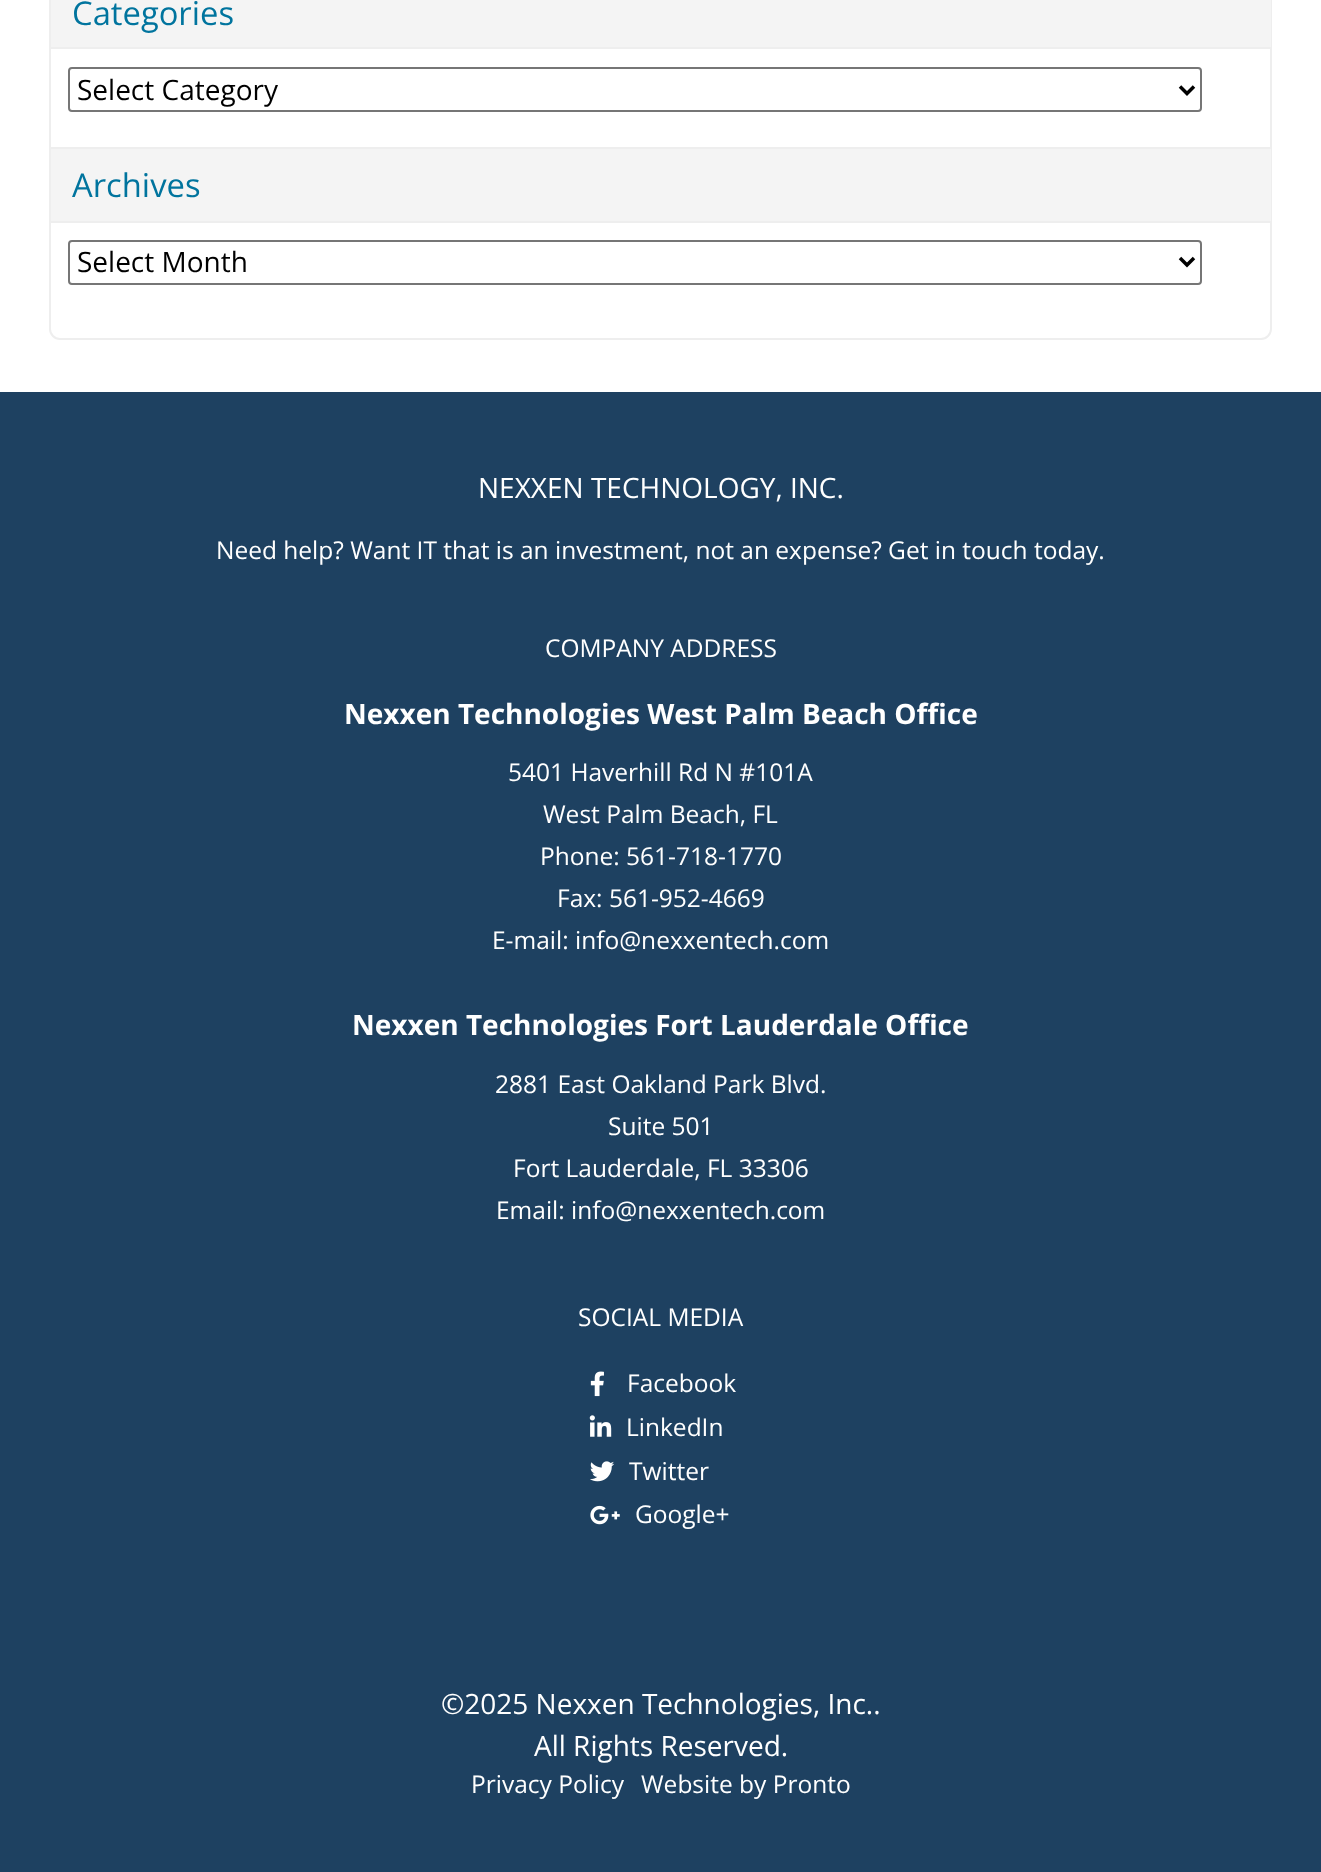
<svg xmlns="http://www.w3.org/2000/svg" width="1321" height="1872">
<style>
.a{font:32.75px Open Sans;fill:#00749e}
.b{font:28px Open Sans;fill:#000}
.c{font:28px Open Sans;fill:#fff}
.d{font:24.5px Open Sans;fill:#fff}
.e{font:bold 28px Open Sans;fill:#fff}
</style>
<rect width="100%" height="100%" fill="#fff"/>
<rect fill="none" stroke="#eee" stroke-width="2" x="50" y="-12" width="1221" height="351" rx="10"/>
<path fill="#f4f4f4" d="M51 0h1220v47H51z"/>
<path fill="#eee" d="M51 47h1220v2H51z"/>
<rect fill="none" stroke="#767676" stroke-width="2" x="69" y="68" width="1132" height="43" rx="3"/>
<path fill="none" stroke="#000" stroke-width="3.5" d="M1180 86.5l7 7l7-7"/>
<path fill="#f4f4f4" d="M51 149h1220v72H51z"/>
<path fill="#eee" d="M51 147h1220v2H51z"/>
<path fill="#eee" d="M51 221h1220v2H51z"/>
<rect fill="none" stroke="#767676" stroke-width="2" x="69" y="241" width="1132" height="43" rx="3"/>
<path fill="none" stroke="#000" stroke-width="3.5" d="M1180 258l7 7l7-7"/>
<path fill="#1e4161" d="M0 392h1321v1480H0z"/>
<image href="1.png" x="590" y="1371" width="14" height="26"/>
<image href="2.png" x="589" y="1415" width="23" height="22"/>
<image href="3.png" x="590" y="1461" width="25" height="21"/>
<image href="4.png" x="590" y="1505" width="30" height="20"/>
<text class="a" x="72" y="25">Categories</text>
<text class="b" x="77" y="100">Select Category</text>
<text class="a" x="72" y="197">Archives</text>
<text class="b" x="77" y="272">Select Month</text>
<text class="c" x="478" y="498">NEXXEN TECHNOLOGY, INC.</text>
<text class="d" x="216" y="559">Need help? Want IT that is an investment, not an expense? Get in touch today.</text>
<text class="d" x="545" y="657">COMPANY ADDRESS</text>
<text class="e" x="344" y="724">Nexxen Technologies West Palm Beach Office</text>
<text class="d" x="508" y="781">5401 Haverhill Rd N #101A</text>
<text class="d" x="543" y="823">West Palm Beach, FL</text>
<text class="d" x="540" y="865">Phone: 561-718-1770</text>
<text class="d" x="557" y="907">Fax: 561-952-4669</text>
<text class="d" x="492" y="949">E-mail: info@nexxentech.com</text>
<text class="e" x="352" y="1035">Nexxen Technologies Fort Lauderdale Office</text>
<text class="d" x="495" y="1093">2881 East Oakland Park Blvd.</text>
<text class="d" x="608" y="1135">Suite 501</text>
<text class="d" x="513" y="1177">Fort Lauderdale, FL 33306</text>
<text class="d" x="496" y="1219">Email: info@nexxentech.com</text>
<text class="d" x="578" y="1326">SOCIAL MEDIA</text>
<text class="d" x="627" y="1392">Facebook</text>
<text class="d" x="626" y="1436">LinkedIn</text>
<text class="d" x="629" y="1480">Twitter</text>
<text class="d" x="635" y="1523">Google+</text>
<text class="c" x="441" y="1714">©2025 Nexxen Technologies, Inc..</text>
<text class="c" x="534" y="1756">All Rights Reserved.</text>
<text class="d" x="471" y="1793">Privacy Policy</text>
<text class="d" x="641" y="1793">Website by Pronto</text>
</svg>
